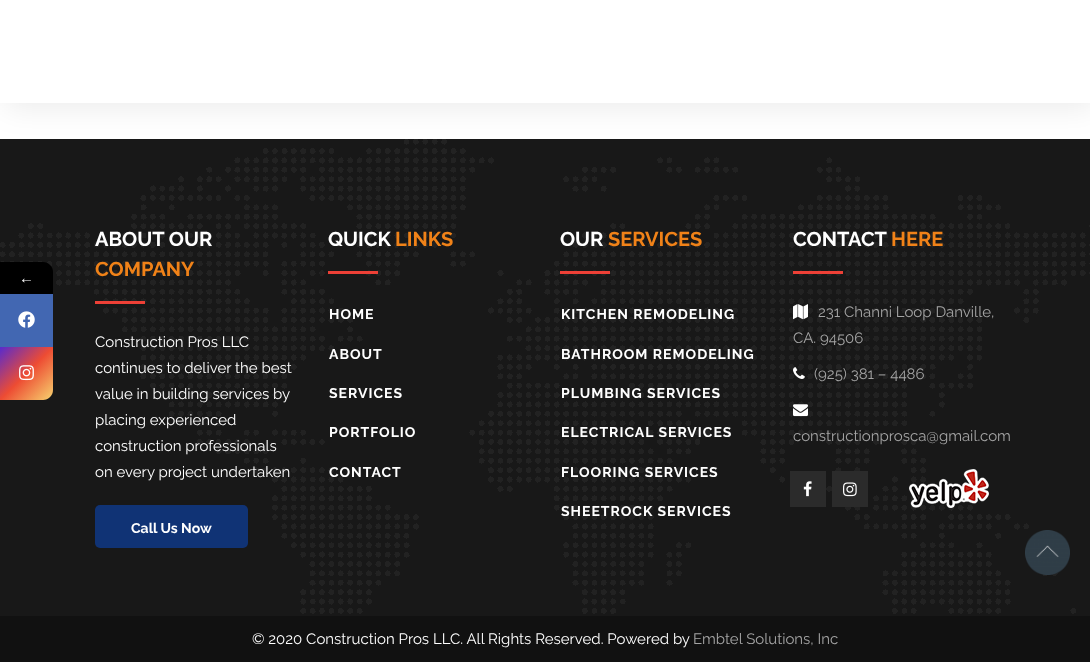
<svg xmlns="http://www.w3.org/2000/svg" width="1090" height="662">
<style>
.a{font:15px Liberation Serif;fill:#fff}
.b{font:bold 20px Raleway;fill:#fff}
.c{font:bold 20px Raleway;fill:#f08218}
.d{font:15px Raleway;fill:#fff}
.e{font:bold 14px Raleway;fill:#fff}
.f{font:bold 14px Raleway;letter-spacing:1px;fill:#fff}
.g{font:15px Raleway;fill:#a4a4a4}
</style>
<defs>
<linearGradient id="g1" gradientUnits="userSpaceOnUse" x1="0" y1="347" x2="53" y2="400"><stop offset="0" stop-color="#582bcd"/><stop offset="0.5" stop-color="#ed4c33"/><stop offset="1" stop-color="#f7d36f"/></linearGradient>
</defs>
<rect width="100%" height="100%" fill="#fff"/>
<path fill="#181818" d="M0 139h1090v477H0z"/>
<image href="3.png" x="0" y="139" width="1090" height="475"/>
<path fill="#000" d="M0 262h43c5.5 0 10 4.5 10 10v22h-53z"/>
<path fill="#4267b2" d="M0 294h53v53H0z"/>
<image href="1.png" x="18" y="311" width="17" height="17"/>
<path fill="url(#g1)" d="M0 347h53v43c0 5.5-4.5 10-10 10h-43z"/>
<image href="2.png" x="19" y="365" width="15" height="16"/>
<path fill="#00000014" filter="blur(15px)" d="M5 5h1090v103H5z"/>
<path fill="#fff" d="M0 0h1090v103H0z"/>
<path fill="#ed4036" d="M95 301h50v3H95z"/>
<rect fill="#103375" x="95" y="505" width="153" height="43" rx="5"/>
<path fill="#ed4036" d="M328 271h50v3H328z"/>
<path fill="#ed4036" d="M560 271h50v3H560z"/>
<path fill="#ed4036" d="M793 271h50v3H793z"/>
<image href="4.png" x="793" y="304" width="15" height="16"/>
<image href="5.png" x="793" y="367" width="12" height="12"/>
<image href="6.png" x="793" y="404" width="15" height="13"/>
<path fill="#2b2b2b" d="M790 471h36v36H790z"/>
<image href="7.png" x="803" y="481" width="9" height="16"/>
<path fill="#2b2b2b" d="M832 471h36v36H832z"/>
<image href="8.png" x="843" y="482" width="14" height="15"/>
<image href="9.png" x="909" y="469" width="80" height="39"/>
<path fill="#111" d="M0 616h1090v46H0z"/>
<image href="10.png" x="1025" y="530" width="45" height="45"/>
<text class="a" x="19" y="283">←</text>
<text class="b" x="95" y="246">ABOUT OUR</text>
<text class="c" x="95" y="276">COMPANY</text>
<text class="d" x="95" y="347">Construction Pros LLC</text>
<text class="d" x="95" y="373">continues to deliver the best</text>
<text class="d" x="95" y="399">value in building services by</text>
<text class="d" x="95" y="425">placing experienced</text>
<text class="d" x="95" y="451">construction professionals</text>
<text class="d" x="95" y="477">on every project undertaken</text>
<text class="e" x="131" y="533">Call Us Now</text>
<text class="b" x="328" y="246">QUICK</text>
<text class="c" x="395" y="246">LINKS</text>
<text class="f" x="329" y="319">HOME</text>
<text class="f" x="329" y="359">ABOUT</text>
<text class="f" x="329" y="398">SERVICES</text>
<text class="f" x="329" y="437">PORTFOLIO</text>
<text class="f" x="329" y="477">CONTACT</text>
<text class="b" x="560" y="246">OUR</text>
<text class="c" x="608" y="246">SERVICES</text>
<text class="f" x="561" y="319">KITCHEN REMODELING</text>
<text class="f" x="561" y="359">BATHROOM REMODELING</text>
<text class="f" x="561" y="398">PLUMBING SERVICES</text>
<text class="f" x="561" y="437">ELECTRICAL SERVICES</text>
<text class="f" x="561" y="477">FLOORING SERVICES</text>
<text class="f" x="561" y="516">SHEETROCK SERVICES</text>
<text class="b" x="793" y="246">CONTACT</text>
<text class="c" x="891" y="246">HERE</text>
<text class="g" x="818" y="317">231 Channi Loop Danville,</text>
<text class="g" x="793" y="343">CA. 94506</text>
<text class="g" x="814" y="379">(925) 381 – 4486</text>
<text class="g" x="793" y="441">constructionprosca@gmail.com</text>
<text class="d" x="252" y="644">© 2020 Construction Pros LLC. All Rights Reserved. Powered by</text>
<text class="g" x="693" y="644">Embtel Solutions, Inc</text>
</svg>
